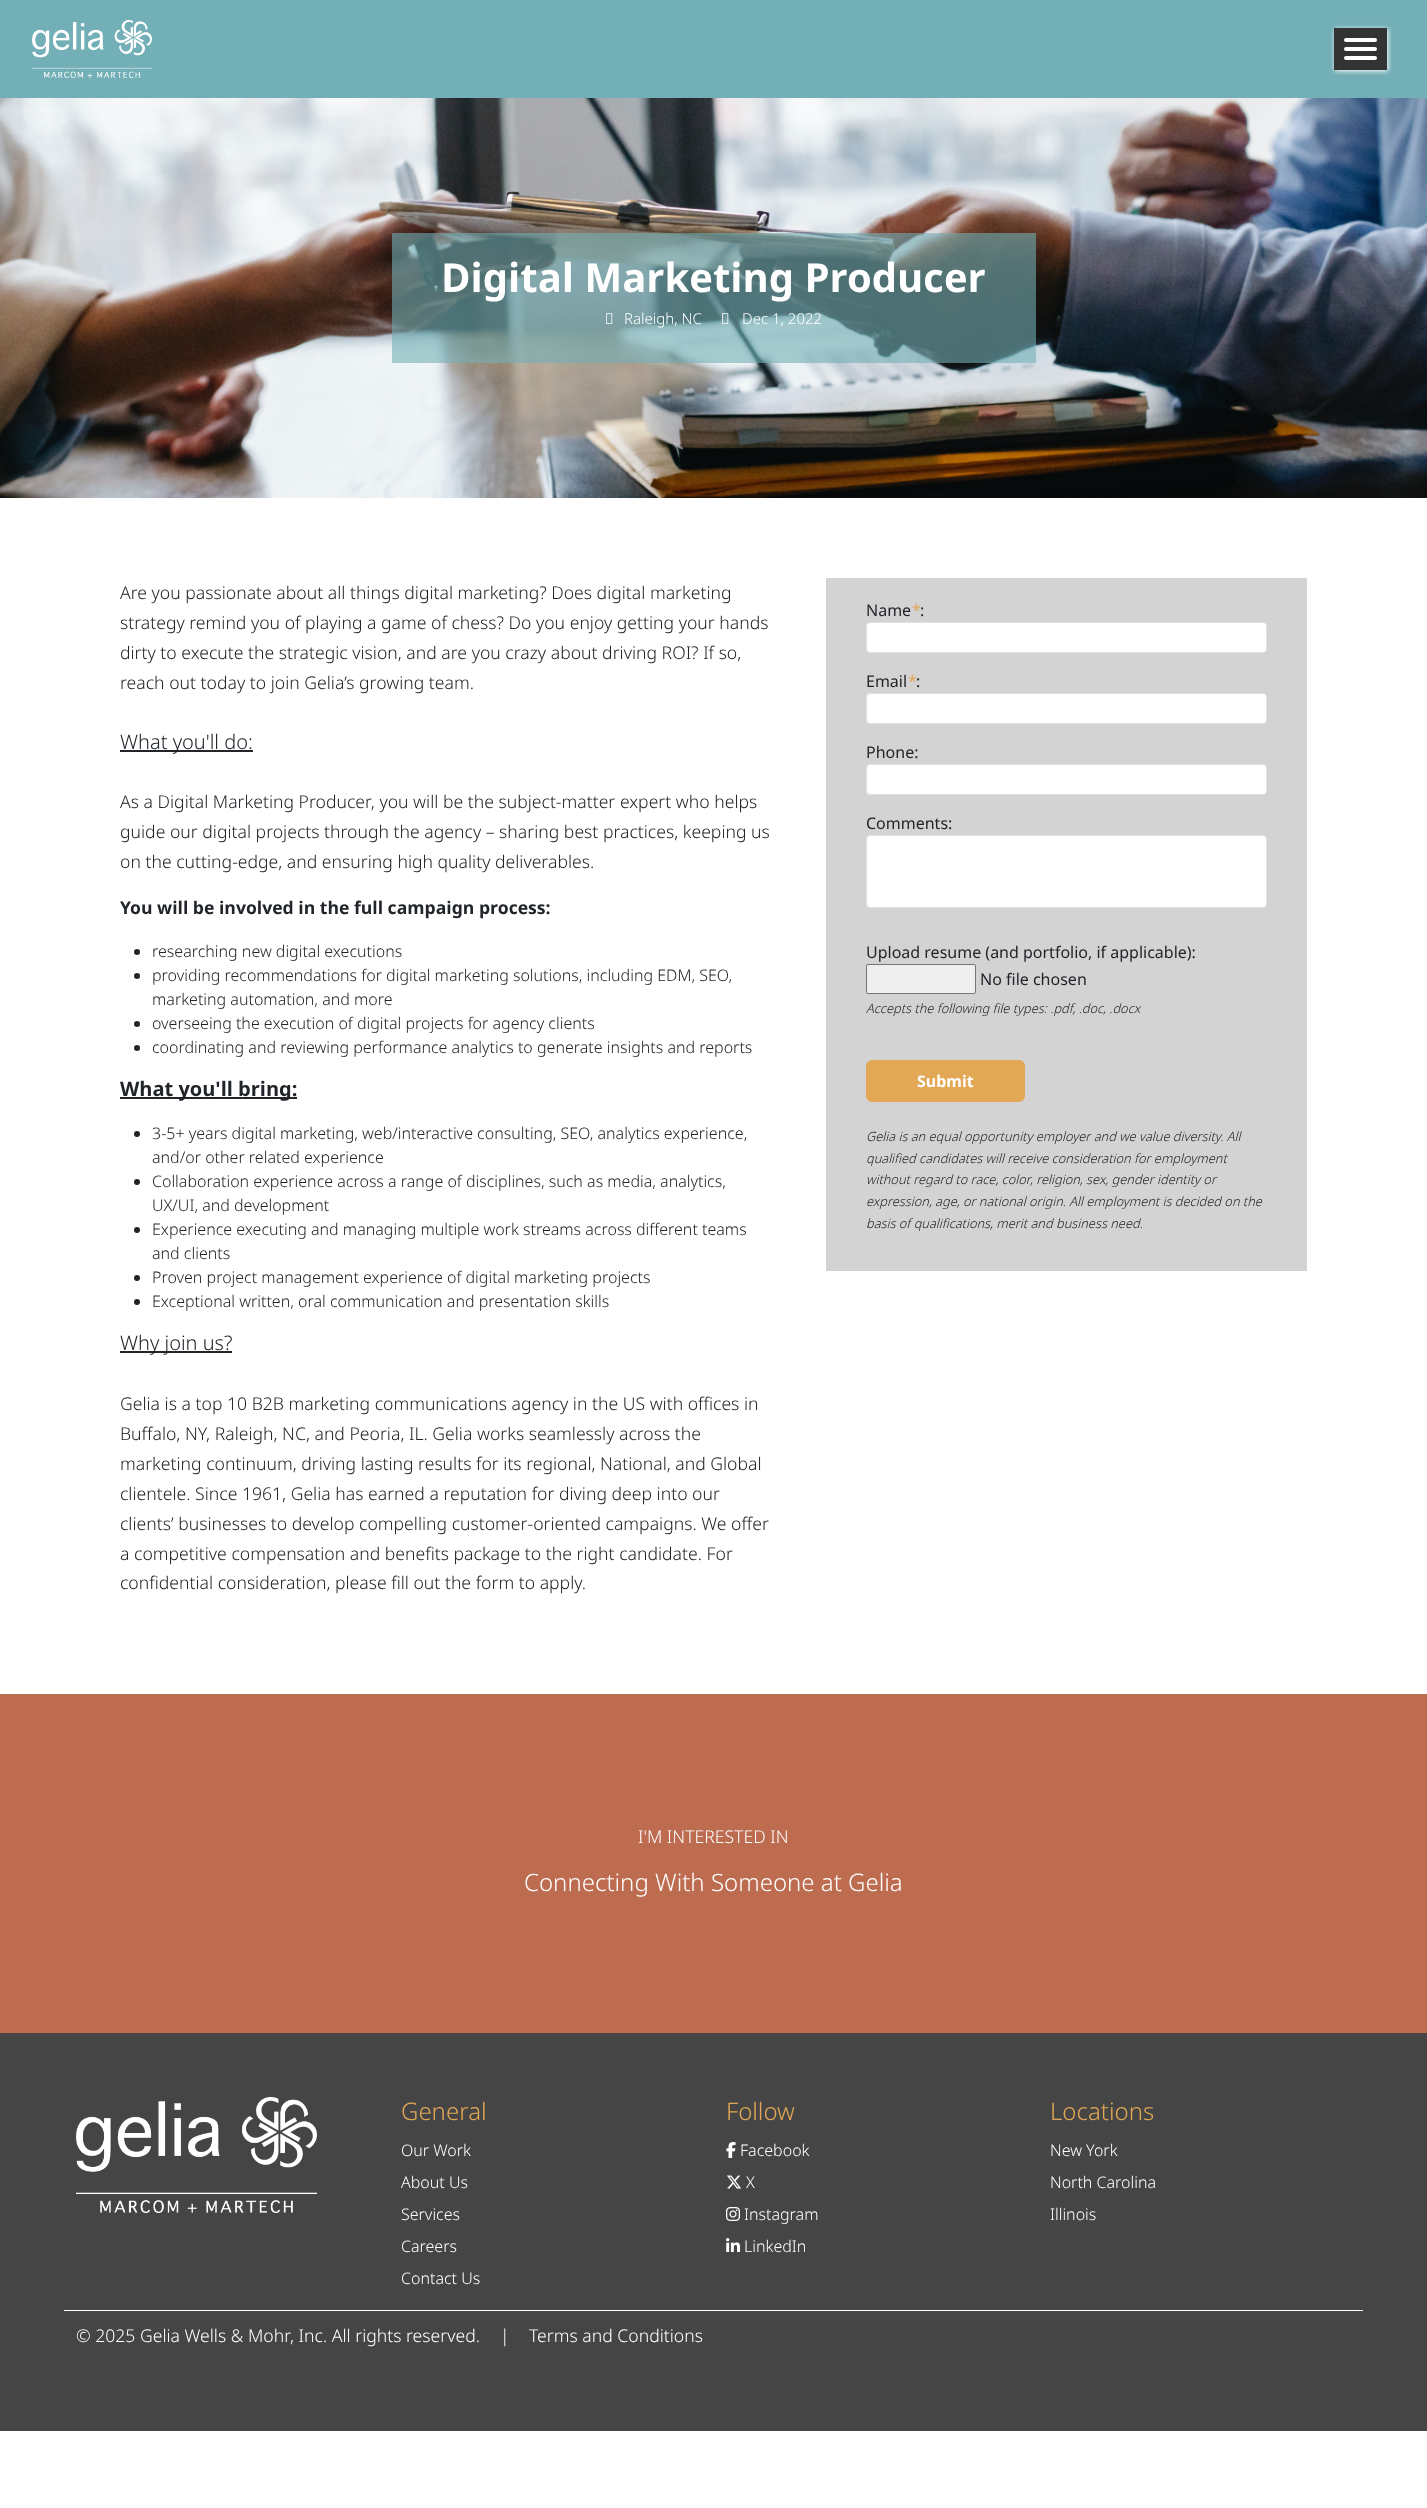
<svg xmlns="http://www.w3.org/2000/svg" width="1427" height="2508">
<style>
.a{font:bold 40px Noto Sans;fill:#fff}
.b{font:300 15px Noto Sans;fill:#fff}
.c{font:300 17.6px Noto Sans;fill:#212529}
.d{font:300 20px Noto Sans;fill:#212529}
.e{font:bold 17.6px Noto Sans;fill:#212529}
.f{font:300 16px Noto Sans;fill:#212529}
.g{font:bold 20px Noto Sans;fill:#212529}
.h{font:16px Noto Sans;fill:#212529}
.i{font:16px Noto Sans;fill:#e2a856}
.j{font:italic 300 12.8px Noto Sans;fill:#212529}
.k{font:bold 16px 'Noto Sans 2';fill:#fff}
.l{font:300 17.6px Noto Sans;fill:#fff}
.m{font:300 24px Noto Sans;fill:#fff}
.n{font:300 24px Noto Sans;fill:#e2a856}
.o{font:300 16px Noto Sans;fill:#fff}
</style>
<rect width="100%" height="100%" fill="#fff"/>
<path fill="#73afb6" d="M0 0h1427v98H0z"/>
<image href="1.png" x="32" y="20" width="120" height="58"/>
<path fill="#fff" filter="blur(2.5px)" d="M1335 29h53v42H1335z"/>
<path fill="#333" d="M1334 28h53v42H1334z"/>
<rect fill="#fff" x="1344" y="38" width="33" height="4" rx="2"/>
<rect fill="#fff" x="1344" y="47" width="33" height="4" rx="2"/>
<rect fill="#fff" x="1344" y="56" width="33" height="4" rx="2"/>
<image href="2.png" x="0" y="98" width="1427" height="400"/>
<path fill="#73afb699" d="M392 233h644v130H392z"/>
<image href="3.png" x="606" y="313" width="7" height="11"/>
<image href="4.png" x="722" y="313" width="7" height="11"/>
<path fill="#212529" d="M120 750h133v2H120z"/>
<circle fill="#212529" cx="137" cy="952" r="3"/>
<circle fill="#212529" cx="137" cy="976" r="3"/>
<circle fill="#212529" cx="137" cy="1024" r="3"/>
<circle fill="#212529" cx="137" cy="1048" r="3"/>
<path fill="#212529" d="M120 1097h177v2H120z"/>
<circle fill="#212529" cx="137" cy="1134" r="3"/>
<circle fill="#212529" cx="137" cy="1182" r="3"/>
<circle fill="#212529" cx="137" cy="1230" r="3"/>
<circle fill="#212529" cx="137" cy="1278" r="3"/>
<circle fill="#212529" cx="137" cy="1302" r="3"/>
<path fill="#212529" d="M120 1351h112v2H120z"/>
<path fill="#d3d3d3" d="M826 578h481v693H826z"/>
<rect fill="#fff" stroke="#dee2e6" x="866.5" y="622.5" width="400" height="30" rx="3.5"/>
<rect fill="#fff" stroke="#dee2e6" x="866.5" y="693.5" width="400" height="30" rx="3.5"/>
<rect fill="#fff" stroke="#dee2e6" x="866.5" y="764.5" width="400" height="30" rx="3.5"/>
<rect fill="#fff" stroke="#dee2e6" x="866.5" y="835.5" width="400" height="72" rx="3.5"/>
<rect fill="#efefef" stroke="#767676" x="866.5" y="964.5" width="109" height="29" rx="1.5"/>
<rect fill="#e2a856" stroke="#e2a856" stroke-width="3" x="867.5" y="1061.5" width="156" height="39" rx="4.5"/>
<path fill="#bd6c50" d="M0 1694h1427v339H0z"/>
<path fill="#454545" d="M0 2033h1427v398H0z"/>
<image href="5.png" x="76" y="2097" width="241" height="116"/>
<image href="6.png" x="726" y="2142" width="10" height="16"/>
<image href="7.png" x="727" y="2175" width="15" height="14"/>
<image href="8.png" x="726" y="2207" width="14" height="14"/>
<image href="9.png" x="726" y="2238" width="14" height="14"/>
<path fill="#fff" d="M64 2310h1299v1H64z"/>
<text class="a" x="441" y="292">Digital Marketing Producer</text>
<text class="b" x="624" y="324">Raleigh, NC</text>
<text class="b" x="742" y="324">Dec 1, 2022</text>
<text class="c" x="120" y="599">Are you passionate about all things digital marketing? Does digital marketing</text>
<text class="c" x="120" y="629">strategy remind you of playing a game of chess? Do you enjoy getting your hands</text>
<text class="c" x="120" y="659">dirty to execute the strategic vision, and are you crazy about driving ROI? If so,</text>
<text class="c" x="120" y="689">reach out today to join Gelia’s growing team.</text>
<text class="d" x="120" y="749">What you'll do:</text>
<text class="c" x="120" y="808">As a Digital Marketing Producer, you will be the subject-matter expert who helps</text>
<text class="c" x="120" y="838">guide our digital projects through the agency – sharing best practices, keeping us</text>
<text class="c" x="120" y="868">on the cutting-edge, and ensuring high quality deliverables.</text>
<text class="e" x="120" y="914">You will be involved in the full campaign process:</text>
<text class="f" x="152" y="957">researching new digital executions</text>
<text class="f" x="152" y="981">providing recommendations for digital marketing solutions, including EDM, SEO,</text>
<text class="f" x="152" y="1005">marketing automation, and more</text>
<text class="f" x="152" y="1029">overseeing the execution of digital projects for agency clients</text>
<text class="f" x="152" y="1053">coordinating and reviewing performance analytics to generate insights and reports</text>
<text class="g" x="120" y="1096">What you'll bring:</text>
<text class="f" x="152" y="1139">3-5+ years digital marketing, web/interactive consulting, SEO, analytics experience,</text>
<text class="f" x="152" y="1163">and/or other related experience</text>
<text class="f" x="152" y="1187">Collaboration experience across a range of disciplines, such as media, analytics,</text>
<text class="f" x="152" y="1211">UX/UI, and development</text>
<text class="f" x="152" y="1235">Experience executing and managing multiple work streams across different teams</text>
<text class="f" x="152" y="1259">and clients</text>
<text class="f" x="152" y="1283">Proven project management experience of digital marketing projects</text>
<text class="f" x="152" y="1307">Exceptional written, oral communication and presentation skills</text>
<text class="d" x="120" y="1350">Why join us?</text>
<text class="c" x="120" y="1410">Gelia is a top 10 B2B marketing communications agency in the US with offices in</text>
<text class="c" x="120" y="1440">Buffalo, NY, Raleigh, NC, and Peoria, IL. Gelia works seamlessly across the</text>
<text class="c" x="120" y="1470">marketing continuum, driving lasting results for its regional, National, and Global</text>
<text class="c" x="120" y="1500">clientele. Since 1961, Gelia has earned a reputation for diving deep into our</text>
<text class="c" x="120" y="1530">clients’ businesses to develop compelling customer-oriented campaigns. We offer</text>
<text class="c" x="120" y="1560">a competitive compensation and benefits package to the right candidate. For</text>
<text class="c" x="120" y="1589">confidential consideration, please fill out the form to apply.</text>
<text class="h" x="866" y="616">Name</text>
<text class="i" x="912" y="616">*</text>
<text class="h" x="920" y="616">:</text>
<text class="h" x="866" y="687">Email</text>
<text class="i" x="908" y="687">*</text>
<text class="h" x="916" y="687">:</text>
<text class="h" x="866" y="758">Phone:</text>
<text class="h" x="866" y="829">Comments:</text>
<text class="h" x="866" y="958">Upload resume (and portfolio, if applicable):</text>
<text class="h" x="980" y="985">No file chosen</text>
<text class="j" x="866" y="1013">Accepts the following file types: .pdf, .doc, .docx</text>
<text class="k" x="917" y="1087">Submit</text>
<text class="j" x="866" y="1141">Gelia is an equal opportunity employer and we value diversity. All</text>
<text class="j" x="866" y="1163">qualified candidates will receive consideration for employment</text>
<text class="j" x="866" y="1184">without regard to race, color, religion, sex, gender identity or</text>
<text class="j" x="866" y="1206">expression, age, or national origin. All employment is decided on the</text>
<text class="j" x="866" y="1228">basis of qualifications, merit and business need.</text>
<text class="l" x="638" y="1843">I'M INTERESTED IN</text>
<text class="m" x="524" y="1891">Connecting With Someone at Gelia</text>
<text class="n" x="401" y="2120">General</text>
<text class="o" x="401" y="2156">Our Work</text>
<text class="o" x="401" y="2188">About Us</text>
<text class="o" x="401" y="2220">Services</text>
<text class="o" x="401" y="2252">Careers</text>
<text class="o" x="401" y="2284">Contact Us</text>
<text class="n" x="726" y="2120">Follow</text>
<text class="o" x="740" y="2156">Facebook</text>
<text class="o" x="746" y="2188">X</text>
<text class="o" x="744" y="2220">Instagram</text>
<text class="o" x="744" y="2252">LinkedIn</text>
<text class="n" x="1050" y="2120">Locations</text>
<text class="o" x="1050" y="2156">New York</text>
<text class="o" x="1050" y="2188">North Carolina</text>
<text class="o" x="1050" y="2220">Illinois</text>
<text class="l" x="76" y="2342">© 2025 Gelia Wells &amp; Mohr, Inc. All rights reserved.</text>
<text class="l" x="500" y="2342">|</text>
<text class="l" x="529" y="2342">Terms and Conditions</text>
</svg>
